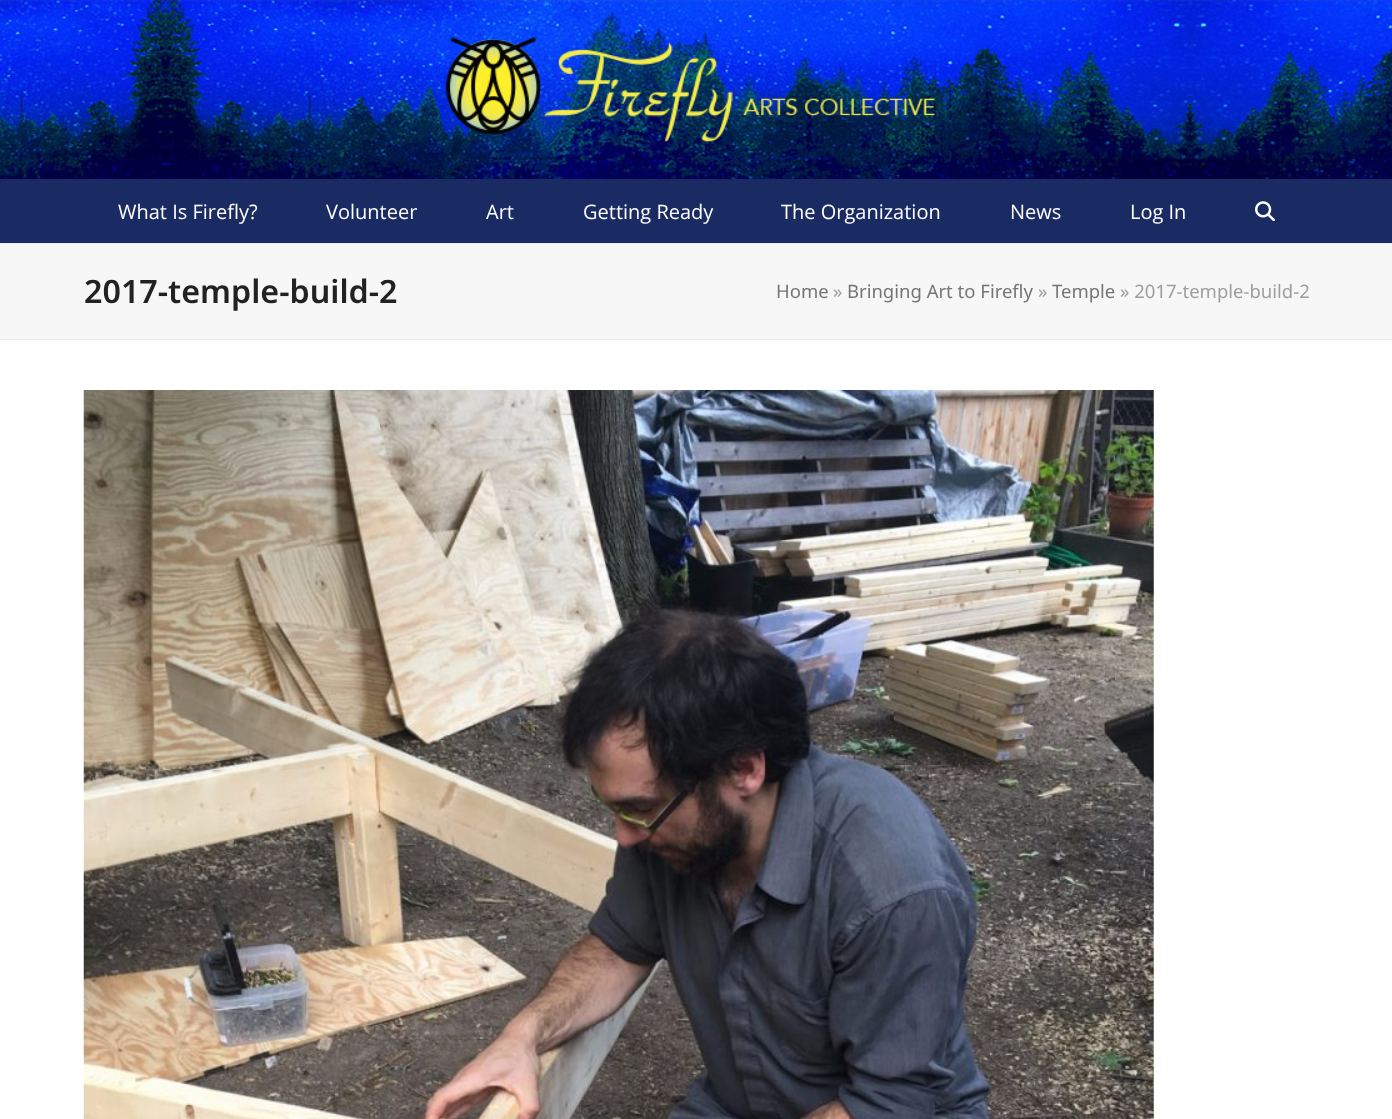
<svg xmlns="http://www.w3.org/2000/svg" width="1392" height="1119">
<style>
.a{font:20px Open Sans;fill:#fff}
.b{font:600 32.25px Noto Sans;fill:#222}
.c{font:18.5px Noto Sans;fill:#757575}
.d{font:18.5px Noto Sans;fill:#9e9e9e}
</style>
<rect width="100%" height="100%" fill="#fff"/>
<image href="1.png" x="0" y="0" width="1392" height="179"/>
<image href="2.png" x="446" y="37" width="490" height="105"/>
<path fill="#1a2a63" d="M0 180h1392v63H0z"/>
<path fill="#1a2a62" d="M0 179h1392v1H0z"/>
<image href="3.png" x="1255" y="201" width="20" height="20"/>
<path fill="#f7f7f7" d="M0 244h1392v95H0z"/>
<path fill="#eee" d="M0 243h1392v1H0z"/>
<path fill="#eee" d="M0 339h1392v1H0z"/>
<image href="4.png" x="83" y="390" width="1071" height="729"/>
<text class="a" x="118" y="219">What Is Firefly?</text>
<text class="a" x="326" y="219">Volunteer</text>
<text class="a" x="486" y="219">Art</text>
<text class="a" x="583" y="219">Getting Ready</text>
<text class="a" x="781" y="219">The Organization</text>
<text class="a" x="1010" y="219">News</text>
<text class="a" x="1130" y="219">Log In</text>
<text class="b" x="84" y="303">2017-temple-build-2</text>
<text class="c" x="776" y="298">Home</text>
<text class="d" x="833" y="298">»</text>
<text class="c" x="847" y="298">Bringing Art to Firefly</text>
<text class="d" x="1038" y="298">»</text>
<text class="c" x="1052" y="298">Temple</text>
<text class="d" x="1120" y="298">» 2017-temple-build-2</text>
</svg>
